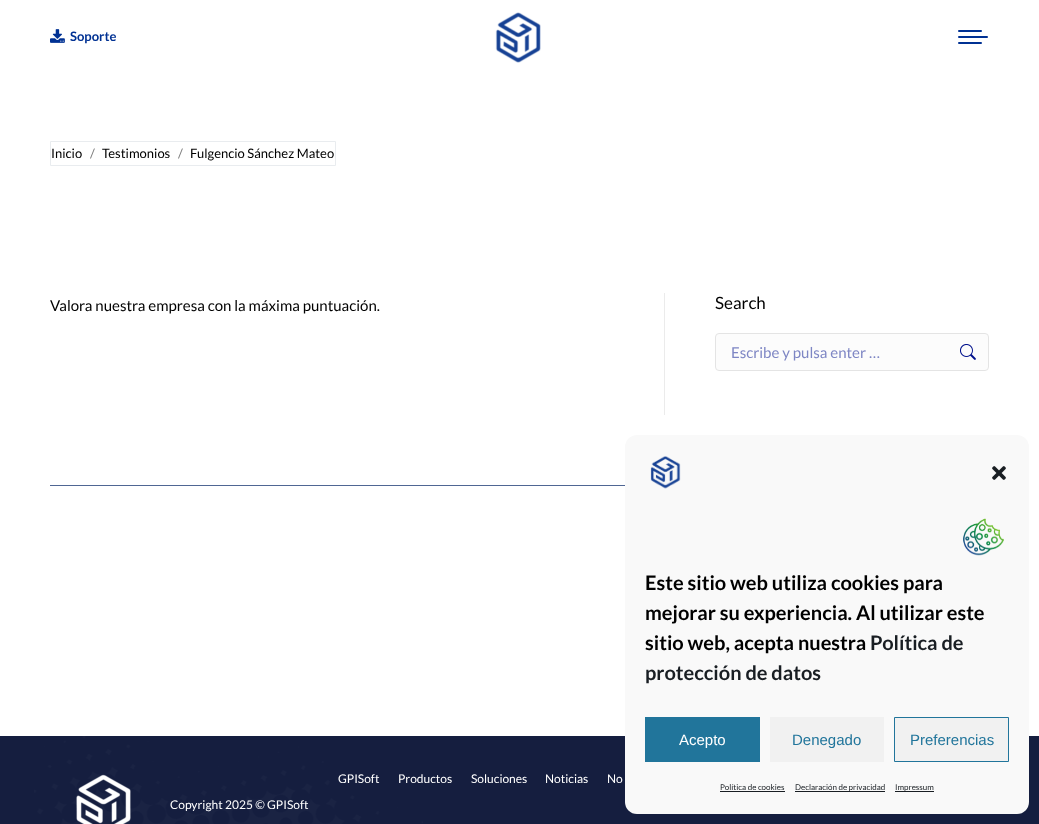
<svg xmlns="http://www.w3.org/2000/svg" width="1039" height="824">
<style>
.a{font:bold 13px Lato;fill:#003193}
.b{font:13px Lato;fill:#000}
.c{font:13px Lato;fill:#808080}
.d{font:15px Lato;fill:#000}
.e{font:17px Lato;fill:#000}
.f{font:15px Lato;fill:#7e86c4}
.g{font:12px Lato;fill:#fff}
.h{font:bold 20px Lato;fill:#000}
.i{font:bold 20px Lato;fill:#191e23}
.j{font:15px Liberation Sans;fill:#fff}
.k{font:15px Liberation Sans;fill:#21759b}
.l{font:8px Lato;fill:#191e23}
</style>
<rect width="100%" height="100%" fill="#fff"/>
<image href="1.png" x="50" y="29" width="15" height="14"/>
<image href="2.png" x="495" y="12" width="46" height="51"/>
<rect fill="#003193" x="958" y="30" width="24" height="2" rx="1"/>
<rect fill="#003193" x="958" y="36" width="30" height="2" rx="1"/>
<rect fill="#003193" x="958" y="42" width="24" height="2" rx="1"/>
<path fill="none" stroke="#e9ecef" d="M50.5 141.5h285v24H50.5z"/>
<path fill="#ebebeb" d="M664 293h1v122H664z"/>
<rect fill="#fcfcfc" stroke="#e4e4e4" x="715.5" y="333.5" width="273" height="37" rx="3.5"/>
<image href="3.png" x="960" y="344" width="16" height="16"/>
<path fill="#4f6693" d="M50 485h575v1H50z"/>
<path fill="#151e3f" d="M0 736h1039v88H0z"/>
<image href="4.png" x="34" y="736" width="389" height="88"/>
<image href="5.png" x="76" y="774" width="55" height="50"/>
<rect fill="#f9f9f9" x="625" y="435" width="404" height="379" rx="12"/>
<image href="6.png" x="650" y="456" width="31" height="33"/>
<image href="7.png" x="992" y="466" width="14" height="14"/>
<image href="8.png" x="963" y="518" width="41" height="38"/>
<path fill="#21759b" d="M645 717h115v45H645z"/>
<path fill="#f1f1f1" d="M770 717h114v45H770z"/>
<path fill="#f1f1f1" stroke="#21759b" d="M894.5 717.5h114v44H894.5z"/>
<path fill="#191e23" d="M720 791h65v1H720z"/>
<path fill="#191e23" d="M795 791h90v1H795z"/>
<path fill="#191e23" d="M895 791h39v1H895z"/>
<text class="a" x="70" y="41">Soporte</text>
<text class="b" x="51" y="158">Inicio</text>
<text class="c" x="90" y="158">/</text>
<text class="b" x="102" y="158">Testimonios</text>
<text class="c" x="178" y="158">/</text>
<text class="b" x="190" y="158">Fulgencio Sánchez Mateo</text>
<text class="d" x="50" y="311">Valora nuestra empresa con la máxima puntuación.</text>
<text class="e" x="715" y="309">Search</text>
<text class="f" x="731" y="358">Escribe y pulsa enter …</text>
<text class="g" x="338" y="783">GPISoft</text>
<text class="g" x="398" y="783">Productos</text>
<text class="g" x="471" y="783">Soluciones</text>
<text class="g" x="545" y="783">Noticias</text>
<text class="g" x="607" y="783">No</text>
<text class="g" x="170" y="809">Copyright 2025 © GPISoft</text>
<text class="h" x="645" y="590">Este sitio web utiliza cookies para</text>
<text class="h" x="645" y="620">mejorar su experiencia. Al utilizar este</text>
<text class="h" x="645" y="650">sitio web, acepta nuestra</text>
<text class="i" x="870" y="650">Política de</text>
<text class="i" x="645" y="680">protección de datos</text>
<text class="j" x="679" y="745">Acepto</text>
<text class="k" x="792" y="745">Denegado</text>
<text class="k" x="910" y="745">Preferencias</text>
<text class="l" x="720" y="790">Política de cookies</text>
<text class="l" x="795" y="790">Declaración de privacidad</text>
<text class="l" x="895" y="790">Impressum</text>
</svg>
